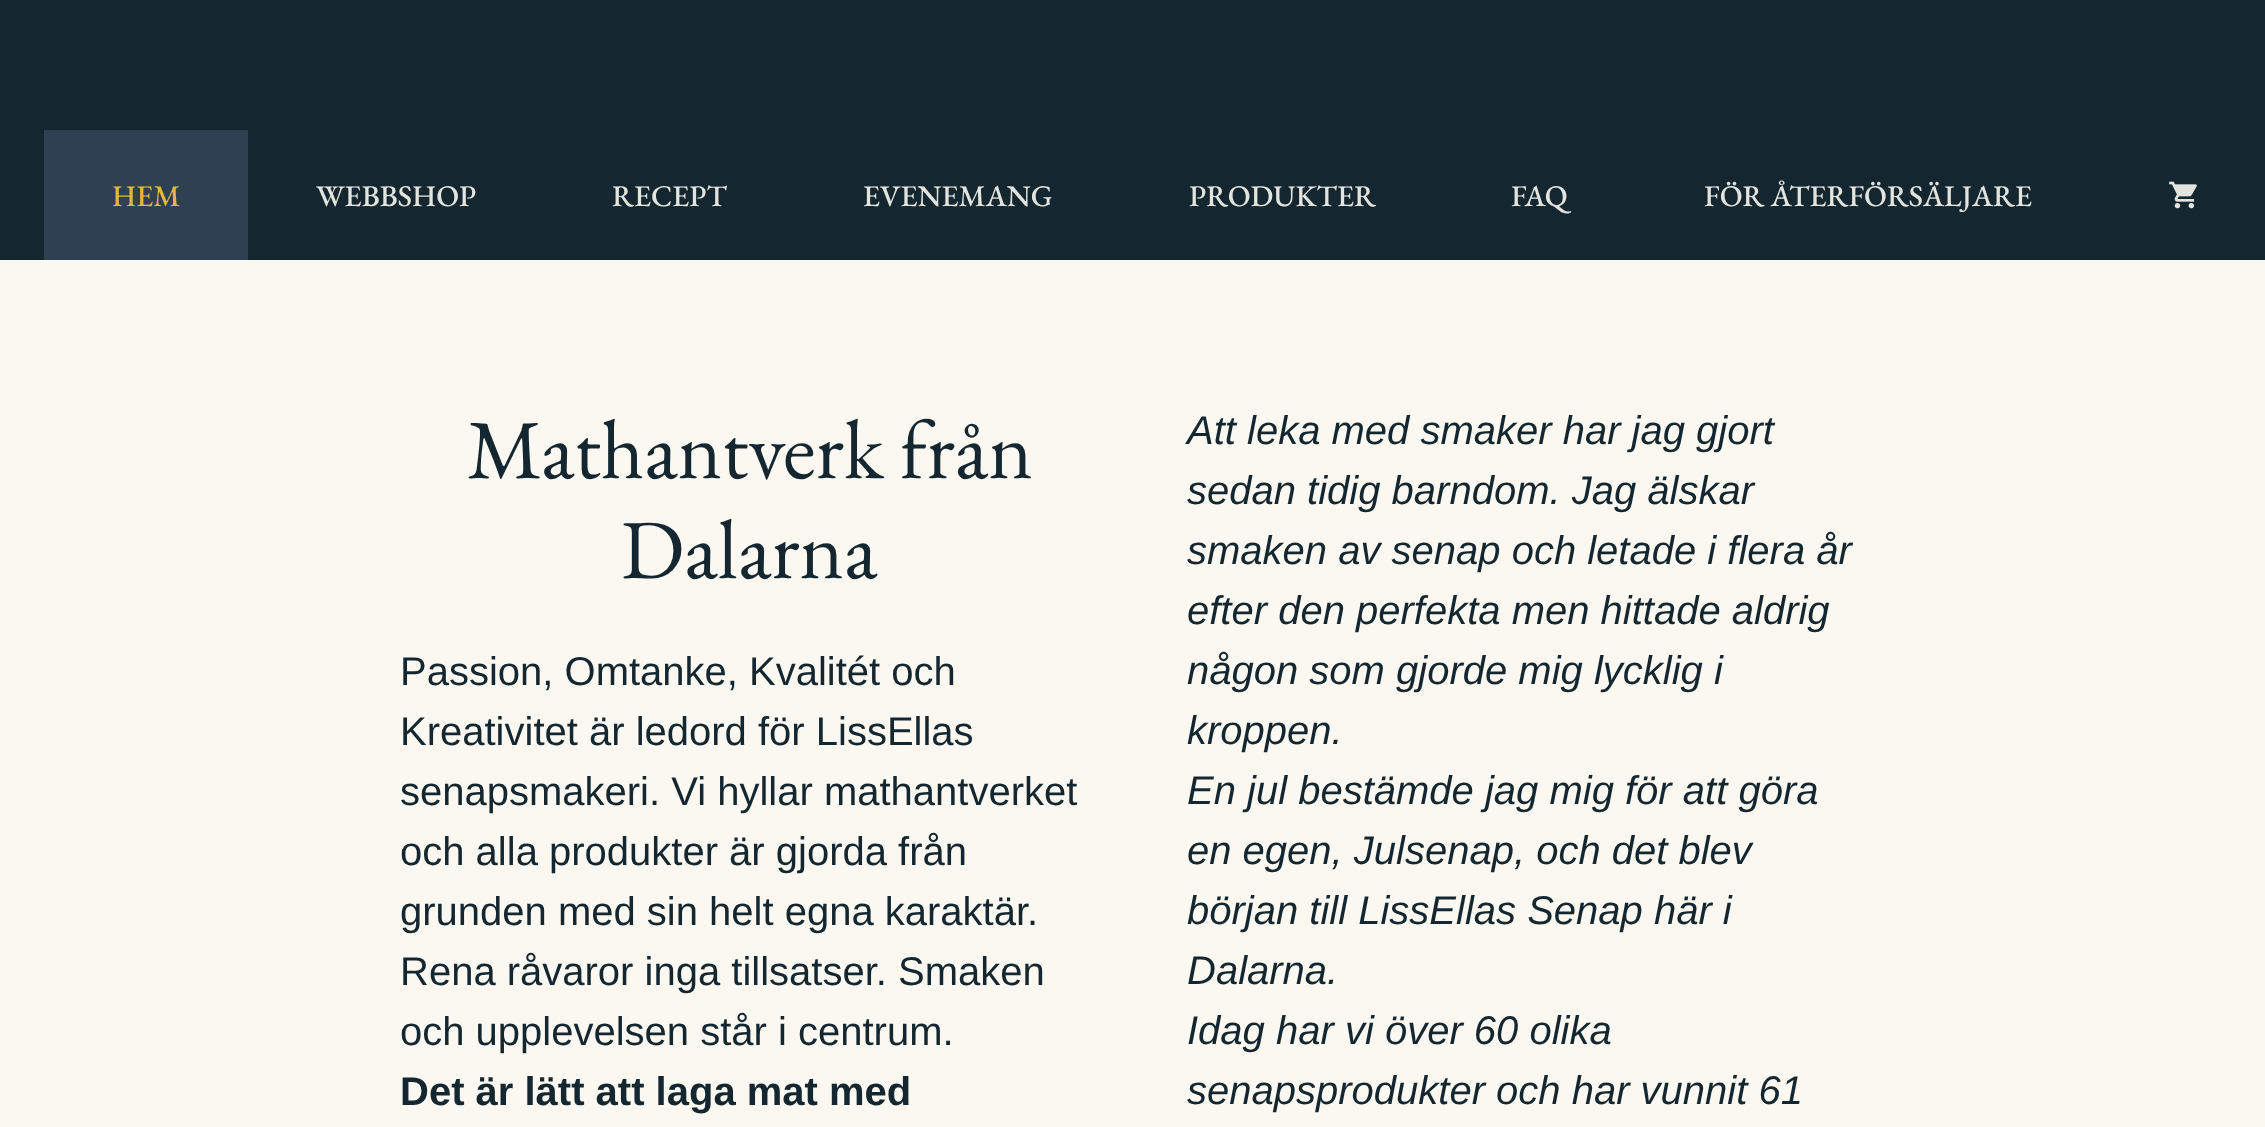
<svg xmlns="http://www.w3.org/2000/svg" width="2265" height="1127">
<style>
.a{font:500 30px EB Garamond;fill:#e5b73b}
.b{font:500 30px EB Garamond;fill:#e4e4de}
.c{font:84px EB Garamond;fill:#142730}
.d{font:40px Liberation Sans;fill:#142730}
.e{font:bold 40px Liberation Sans;fill:#142730}
.f{font:italic 40px Liberation Sans;fill:#142730}
</style>
<rect width="100%" height="100%" fill="#142730"/>
<path fill="#2d4153" d="M44 130h204v130H44z"/>
<image href="1.png" x="2169" y="181" width="28" height="28"/>
<path fill="#faf8f0" d="M0 260h2265v867H0z"/>
<text class="a" x="112" y="206">HEM</text>
<text class="b" x="316" y="206">WEBBSHOP</text>
<text class="b" x="612" y="206">RECEPT</text>
<text class="b" x="863" y="206">EVENEMANG</text>
<text class="b" x="1189" y="206">PRODUKTER</text>
<text class="b" x="1511" y="206">FAQ</text>
<text class="b" x="1704" y="206">FÖR ÅTERFÖRSÄLJARE</text>
<text class="c" x="467" y="478">Mathantverk från</text>
<text class="c" x="621" y="578">Dalarna</text>
<text class="d" x="400" y="685">Passion, Omtanke, Kvalitét och</text>
<text class="d" x="400" y="745">Kreativitet är ledord för LissEllas</text>
<text class="d" x="400" y="805">senapsmakeri. Vi hyllar mathantverket</text>
<text class="d" x="400" y="865">och alla produkter är gjorda från</text>
<text class="d" x="400" y="925">grunden med sin helt egna karaktär.</text>
<text class="d" x="400" y="985">Rena råvaror inga tillsatser. Smaken</text>
<text class="d" x="400" y="1045">och upplevelsen står i centrum.</text>
<text class="e" x="400" y="1105">Det är lätt att laga mat med</text>
<text class="f" x="1187" y="444">Att leka med smaker har jag gjort</text>
<text class="f" x="1187" y="504">sedan tidig barndom. Jag älskar</text>
<text class="f" x="1187" y="564">smaken av senap och letade i flera år</text>
<text class="f" x="1187" y="624">efter den perfekta men hittade aldrig</text>
<text class="f" x="1187" y="684">någon som gjorde mig lycklig i</text>
<text class="f" x="1187" y="744">kroppen.</text>
<text class="f" x="1187" y="804">En jul bestämde jag mig för att göra</text>
<text class="f" x="1187" y="864">en egen, Julsenap, och det blev</text>
<text class="f" x="1187" y="924">början till LissEllas Senap här i</text>
<text class="f" x="1187" y="984">Dalarna.</text>
<text class="f" x="1187" y="1044">Idag har vi över 60 olika</text>
<text class="f" x="1187" y="1104">senapsprodukter och har vunnit 61</text>
</svg>
